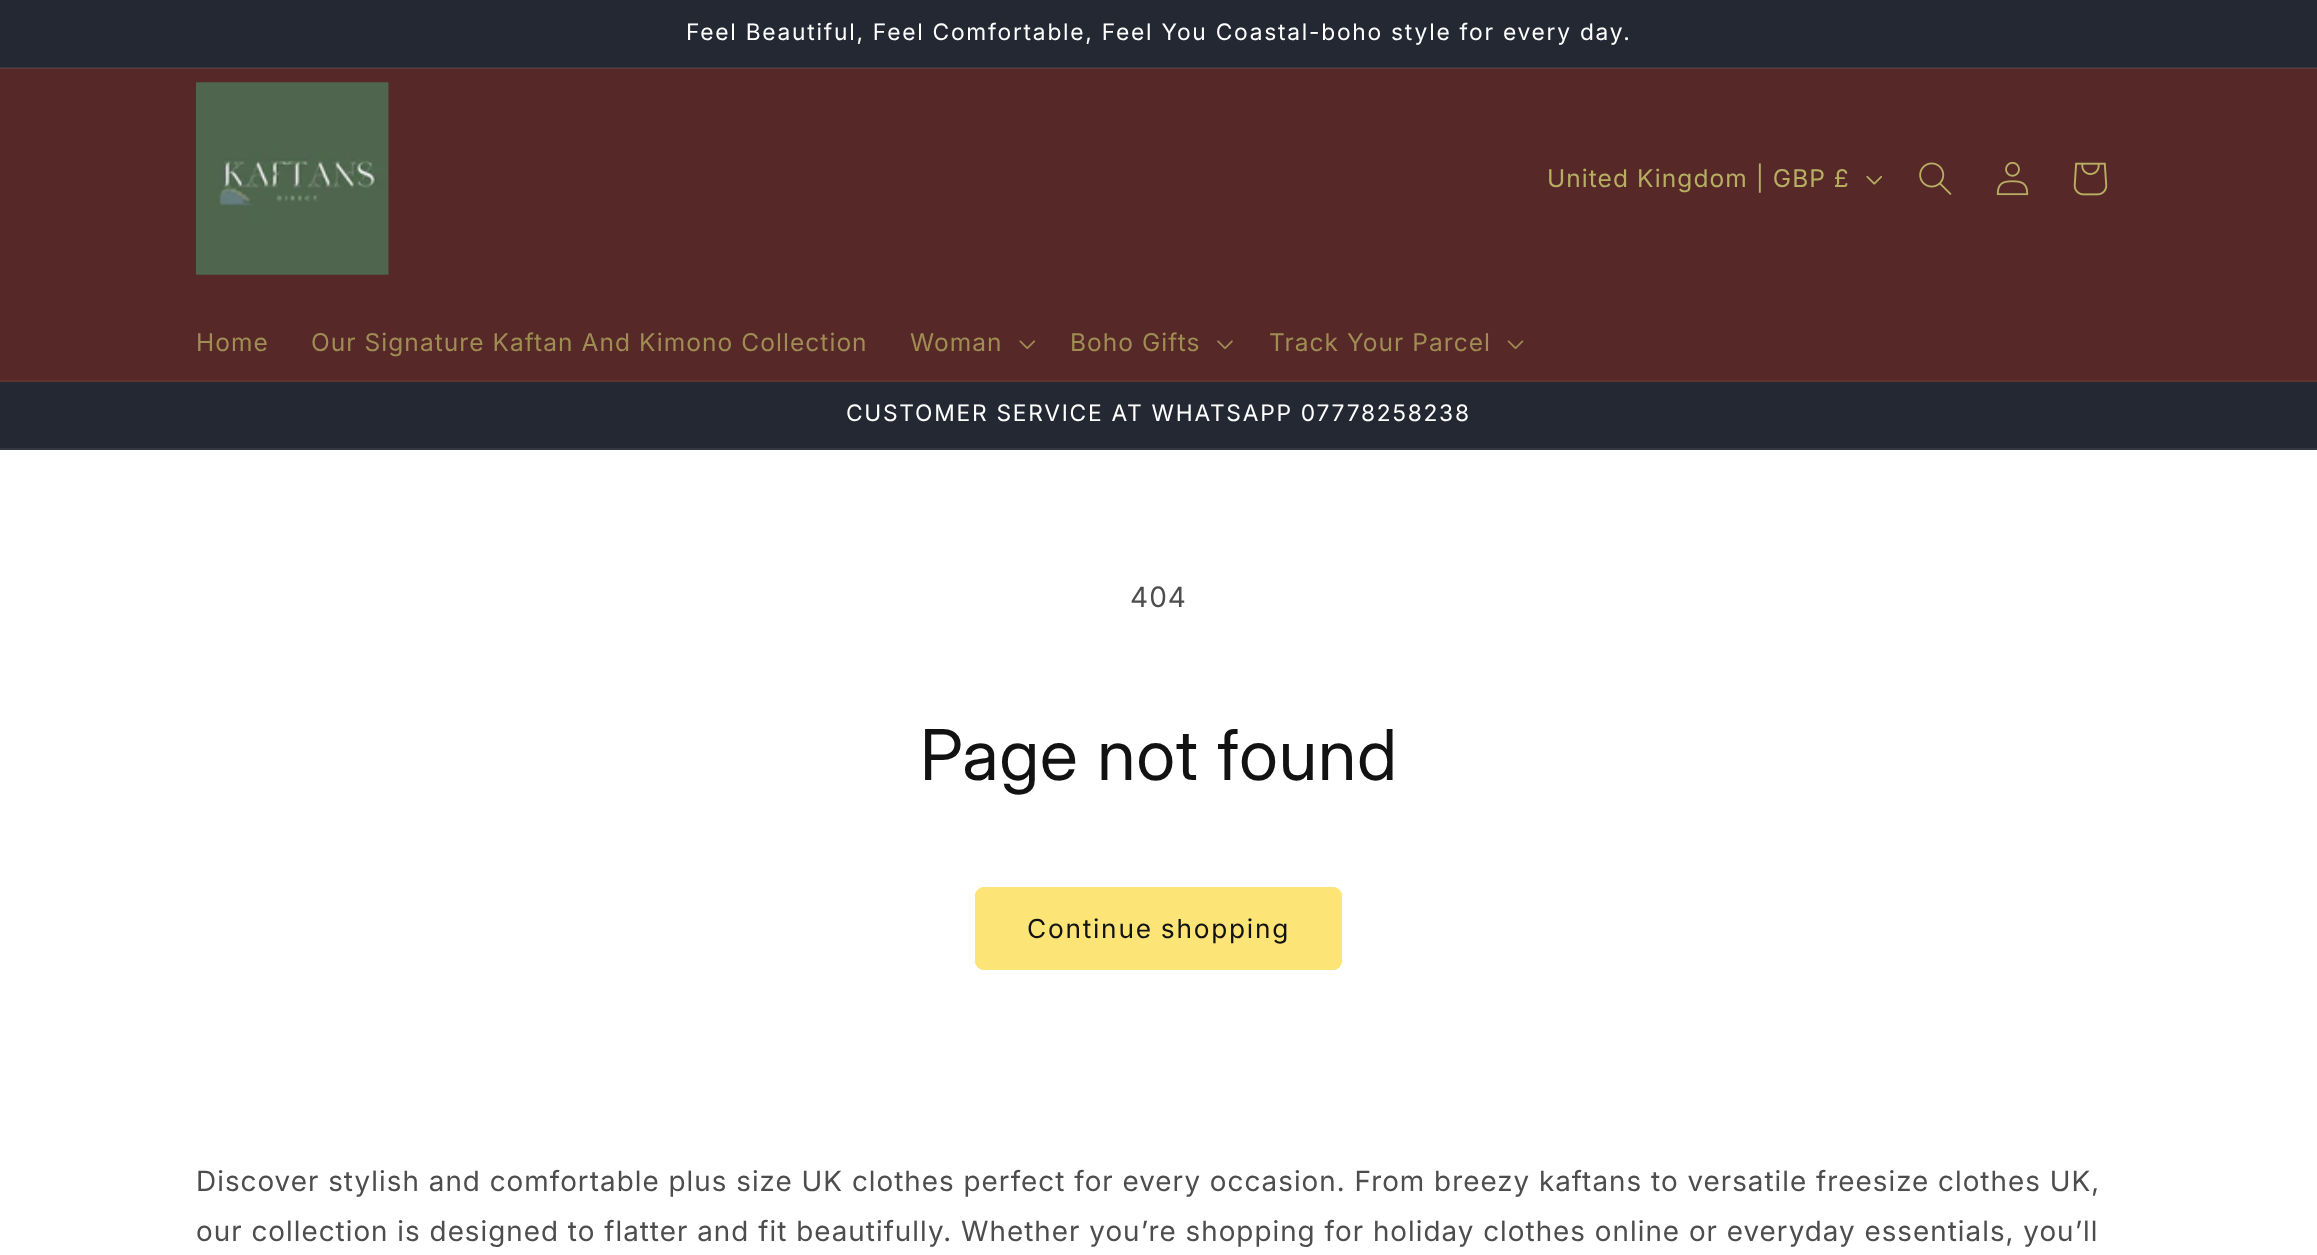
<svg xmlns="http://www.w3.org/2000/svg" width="2317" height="1255">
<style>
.a{font:22.75px Inter;letter-spacing:1.75px;fill:#fff}
.b{font:24.5px Inter;letter-spacing:1.05px;fill:#b7ae63}
.c{font:24.5px Inter;letter-spacing:1.05px;fill:#9f8d54}
.d{font:28px Inter;letter-spacing:1.05px;fill:#4d4d4d}
.e{font:70px 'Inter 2';letter-spacing:1.05px;fill:#121212}
.f{font:26.25px Inter;letter-spacing:1.75px;fill:#121212}
.g{font:28px 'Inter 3';letter-spacing:1.05px;fill:#4d4d4d}
</style>
<rect width="100%" height="100%" fill="#fff"/>
<path fill="#242833" d="M0 0h2317v67H0z"/>
<path fill="#363943" d="M0 67h2317v1H0z"/>
<path fill="#562828" d="M0 69h2317v311H0z"/>
<path fill="#643939" d="M0 68h2317v1H0z"/>
<path fill="#5e332d" d="M0 380h2317v2H0z"/>
<image href="1.png" x="196" y="82" width="193" height="193"/>
<image href="2.png" x="1866" y="175" width="17" height="10"/>
<image href="3.png" x="1919" y="162" width="33" height="33"/>
<image href="4.png" x="1996" y="161" width="33" height="35"/>
<image href="5.png" x="2073" y="162" width="35" height="34"/>
<image href="6.png" x="1019" y="340" width="17" height="10"/>
<image href="7.png" x="1217" y="340" width="16" height="9"/>
<image href="8.png" x="1507" y="340" width="17" height="10"/>
<path fill="#242833" d="M0 382h2317v66H0z"/>
<path fill="#363943" d="M0 448h2317v2H0z"/>
<rect fill="#fce477" x="975" y="887" width="367" height="83" rx="9"/>
<rect fill="none" stroke="#fce477" stroke-width="2" x="976" y="888" width="365" height="81" rx="8"/>
<text class="a" x="686" y="40">Feel Beautiful, Feel Comfortable, Feel You Coastal-boho style for every day.</text>
<text class="b" x="1547" y="187">United Kingdom | GBP £</text>
<text class="c" x="196" y="351">Home</text>
<text class="c" x="311" y="351">Our Signature Kaftan And Kimono Collection</text>
<text class="c" x="910" y="351">Woman</text>
<text class="c" x="1070" y="351">Boho Gifts</text>
<text class="c" x="1269" y="351">Track Your Parcel</text>
<text class="a" x="846" y="421">CUSTOMER SERVICE AT WHATSAPP 07778258238</text>
<text class="d" x="1130" y="607">404</text>
<text class="e" x="920" y="780">Page not found</text>
<text class="f" x="1027" y="938" word-spacing="-1">Continue shopping</text>
<text class="g" x="196" y="1191">Discover stylish and comfortable plus size UK clothes perfect for every occasion. From breezy kaftans to versatile freesize clothes UK,</text>
<text class="g" x="196" y="1241">our collection is designed to flatter and fit beautifully. Whether you’re shopping for holiday clothes online or everyday essentials, you’ll</text>
</svg>
